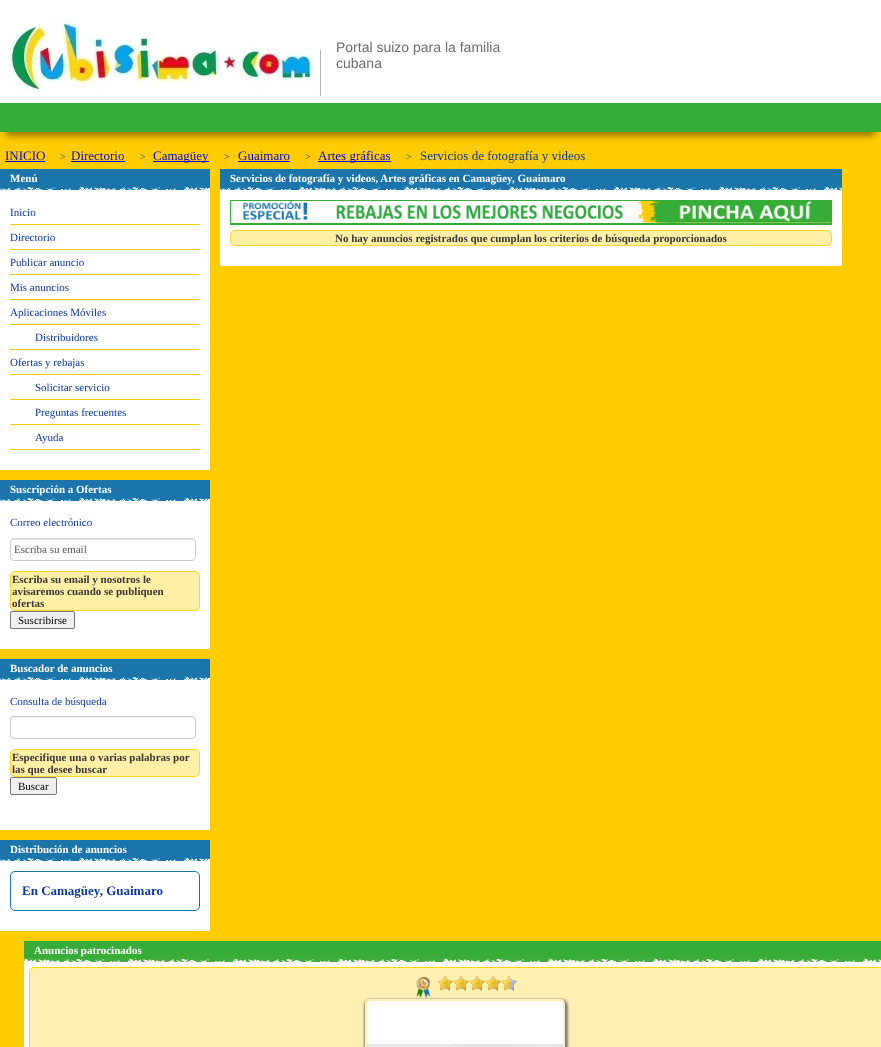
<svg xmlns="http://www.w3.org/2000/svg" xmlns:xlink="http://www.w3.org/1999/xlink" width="881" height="1047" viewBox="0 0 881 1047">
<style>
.cls-1{font:14px Liberation Sans;fill:#6d6d6d}
.cls-2{font:13px Liberation Serif;fill:#0000ee}
.cls-3{font:10px Liberation Serif;fill:#0b38a0}
.cls-4{font:13px Liberation Serif;fill:#0b38a0}
.cls-5{font:bold 11px Liberation Serif;fill:#ffffff}
.cls-6{font:11px Liberation Serif;fill:#0b38a0}
.cls-7{font:11px Liberation Serif;fill:#555555}
.cls-8{font:bold 11px Liberation Serif;fill:#363636}
.cls-9{font:11px Liberation Serif;fill:#000000}
.cls-10{font:bold 13px Liberation Serif;fill:#0b38a0}
</style>
<defs>
<clipPath id="clip1"><path d="M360 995H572V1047H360ZM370 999H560C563 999 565 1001 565 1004V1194C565 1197 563 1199 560 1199H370C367 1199 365 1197 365 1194V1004C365 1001 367 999 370 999Z" clip-rule="evenodd"/></clipPath>
</defs>
<rect width="100%" height="100%" fill="#ffcc00"/>
<rect fill="#ffffff" x="0" y="0" width="881" height="103"/>
<image xlink:href="image0.png" x="9" y="19" width="312" height="77"/>
<rect fill="#000000" fill-opacity="0.4" filter="blur(3px)" x="6" y="119" width="869" height="17"/>
<rect fill="#37ac37" x="0" y="103" width="881" height="29"/>
<rect fill="#0000ee" x="5" y="161" width="40" height="1"/>
<rect fill="#0000ee" x="71" y="161" width="54" height="1"/>
<rect fill="#0000ee" x="153" y="161" width="56" height="1"/>
<rect fill="#0000ee" x="238" y="161" width="52" height="1"/>
<rect fill="#0000ee" x="318" y="161" width="73" height="1"/>
<rect fill="#ffffff" x="0" y="187" width="210" height="744"/>
<rect fill="#1b75ab" x="0" y="169" width="210" height="17"/>
<image xlink:href="image1.png" x="0" y="186" width="210" height="4"/>
<rect fill="#ffcc00" x="10" y="224" width="190" height="1"/>
<rect fill="#ffcc00" x="10" y="249" width="190" height="1"/>
<rect fill="#ffcc00" x="10" y="274" width="190" height="1"/>
<rect fill="#ffcc00" x="10" y="299" width="190" height="1"/>
<rect fill="#ffcc00" x="10" y="324" width="190" height="1"/>
<rect fill="#ffcc00" x="10" y="349" width="190" height="1"/>
<rect fill="#ffcc00" x="10" y="374" width="190" height="1"/>
<rect fill="#ffcc00" x="10" y="399" width="190" height="1"/>
<rect fill="#ffcc00" x="10" y="424" width="190" height="1"/>
<rect fill="#ffcc00" x="10" y="449" width="190" height="1"/>
<rect fill="#ffcc00" x="0" y="470" width="210" height="10"/>
<rect fill="#1b75ab" x="0" y="480" width="210" height="17"/>
<image xlink:href="image1.png" x="0" y="497" width="210" height="4"/>
<path fill="#ececec" d="M14 540H193L194 541L195 543C195 541 194 539 192 539H13C11 540 11 541 11 543C11 541 12 540 14 540Z"/>
<rect fill="none" stroke="#cccccc" x="10.5" y="538.5" width="185" height="22" rx="3.5"/>
<image xlink:href="image2.png" x="10" y="572" width="190" height="39"/>
<rect fill="none" stroke="#fed22f" x="10.5" y="571.5" width="189" height="39" rx="4.5"/>
<rect fill="#efefef" stroke="#767676" x="10.5" y="611.5" width="64" height="17" rx="1.5"/>
<rect fill="#ffcc00" x="0" y="649" width="210" height="10"/>
<rect fill="#1b75ab" x="0" y="659" width="210" height="17"/>
<image xlink:href="image1.png" x="0" y="676" width="210" height="4"/>
<path fill="#ececec" d="M14 718H193L194 719L195 721C195 719 194 717 192 717H13C11 718 11 719 11 721C11 719 12 718 14 718Z"/>
<rect fill="none" stroke="#cccccc" x="10.5" y="716.5" width="185" height="22" rx="3.5"/>
<image xlink:href="image3.png" x="10" y="750" width="190" height="27"/>
<rect fill="none" stroke="#fed22f" x="10.5" y="749.5" width="189" height="27" rx="4.5"/>
<rect fill="#efefef" stroke="#767676" x="10.5" y="777.5" width="46" height="17" rx="1.5"/>
<rect fill="#ffcc00" x="0" y="830" width="210" height="10"/>
<rect fill="#1b75ab" x="0" y="840" width="210" height="17"/>
<image xlink:href="image1.png" x="0" y="857" width="210" height="4"/>
<rect fill="none" stroke="#1b75ab" x="10.5" y="871.5" width="189" height="39" rx="4.5"/>
<rect fill="#ffffff" x="220" y="187" width="622" height="79"/>
<rect fill="#1b75ab" x="220" y="169" width="622" height="17"/>
<image xlink:href="image4.png" x="220" y="186" width="622" height="4"/>
<rect fill="#37ac37" x="230" y="200" width="602" height="25"/>
<image xlink:href="image5.png" x="231" y="201" width="600" height="22"/>
<image xlink:href="image6.png" x="230" y="231" width="602" height="15"/>
<rect fill="none" stroke="#fed22f" x="230.5" y="230.5" width="601" height="15" rx="4.5"/>
<rect fill="#ffffff" x="24" y="959" width="857" height="88"/>
<rect fill="#37ac37" x="24" y="941" width="857" height="17"/>
<image xlink:href="image7.png" x="24" y="958" width="857" height="4"/>
<rect fill="#ffefb2" stroke="#ffd700" x="29.5" y="967.5" width="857" height="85" rx="4.5"/>
<image xlink:href="image8.png" x="416" y="977" width="15" height="22"/>
<image xlink:href="image9.png" x="437" y="975" width="8" height="16"/>
<image xlink:href="image10.png" x="445" y="975" width="8" height="16"/>
<image xlink:href="image9.png" x="453" y="975" width="8" height="16"/>
<image xlink:href="image10.png" x="461" y="975" width="8" height="16"/>
<image xlink:href="image9.png" x="469" y="975" width="8" height="16"/>
<image xlink:href="image10.png" x="477" y="975" width="8" height="16"/>
<image xlink:href="image9.png" x="485" y="975" width="8" height="16"/>
<image xlink:href="image10.png" x="493" y="975" width="8" height="16"/>
<image xlink:href="image9.png" x="501" y="975" width="8" height="16"/>
<image xlink:href="image11.png" x="509" y="976" width="8" height="15"/>
<g clip-path="url(#clip1)">
<rect fill="#808080" filter="blur(1px)" x="364" y="999" width="204" height="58" rx="7"/>
</g>
<image xlink:href="image12.png" x="367" y="1001" width="196" height="46"/>
<text class="cls-1"><tspan x="336" y="52">Portal suizo para la familia</tspan><tspan x="336" y="68">cubana</tspan></text>
<text class="cls-2" x="5" y="160">INICIO</text>
<text class="cls-3" x="60" y="160">&gt;</text>
<text class="cls-2" x="71" y="160">Directorio</text>
<text class="cls-3" x="140" y="160">&gt;</text>
<text class="cls-2" x="153" y="160">Camagüey</text>
<text class="cls-3" x="224" y="160">&gt;</text>
<text class="cls-2" x="238" y="160">Guaimaro</text>
<text class="cls-3" x="305" y="160">&gt;</text>
<text class="cls-2" x="318" y="160">Artes gráficas</text>
<text class="cls-3" x="406" y="160">&gt;</text>
<text class="cls-4" x="420" y="160">Servicios de fotografía y videos</text>
<text class="cls-5" x="10" y="182">Menú</text>
<text class="cls-6" x="10" y="216">Inicio</text>
<text class="cls-6" x="10" y="241">Directorio</text>
<text class="cls-6" x="10" y="266">Publicar anuncio</text>
<text class="cls-6" x="10" y="291">Mis anuncios</text>
<text class="cls-6" x="10" y="316">Aplicaciones Móviles</text>
<text class="cls-6" x="35" y="341">Distribuidores</text>
<text class="cls-6" x="10" y="366">Ofertas y rebajas</text>
<text class="cls-6" x="35" y="391">Solicitar servicio</text>
<text class="cls-6" x="35" y="416">Preguntas frecuentes</text>
<text class="cls-6" x="35" y="441">Ayuda</text>
<text class="cls-5" x="10" y="493">Suscripción a Ofertas</text>
<text class="cls-6" x="10" y="526">Correo electrónico</text>
<text class="cls-7" x="14" y="553">Escriba su email</text>
<text class="cls-8"><tspan x="12" y="583">Escriba su email y nosotros le</tspan><tspan x="12" y="595">avisaremos cuando se publiquen</tspan><tspan x="12" y="607">ofertas</tspan></text>
<text class="cls-9" x="18" y="624">Suscribirse</text>
<text class="cls-5" x="10" y="672">Buscador de anuncios</text>
<text class="cls-6" x="10" y="705">Consulta de búsqueda</text>
<text class="cls-8"><tspan x="12" y="761">Especifique una o varias palabras por</tspan><tspan x="12" y="773">las que desee buscar</tspan></text>
<text class="cls-9" x="18" y="790">Buscar</text>
<text class="cls-5" x="10" y="853">Distribución de anuncios</text>
<text class="cls-10" x="22" y="895">En Camagüey, Guaimaro</text>
<text class="cls-5" x="230" y="182">Servicios de fotografía y videos, Artes gráficas en Camagüey, Guaimaro</text>
<text class="cls-8" x="335" y="242">No hay anuncios registrados que cumplan los criterios de búsqueda proporcionados</text>
<text class="cls-5" x="34" y="954">Anuncios patrocinados</text>
</svg>
